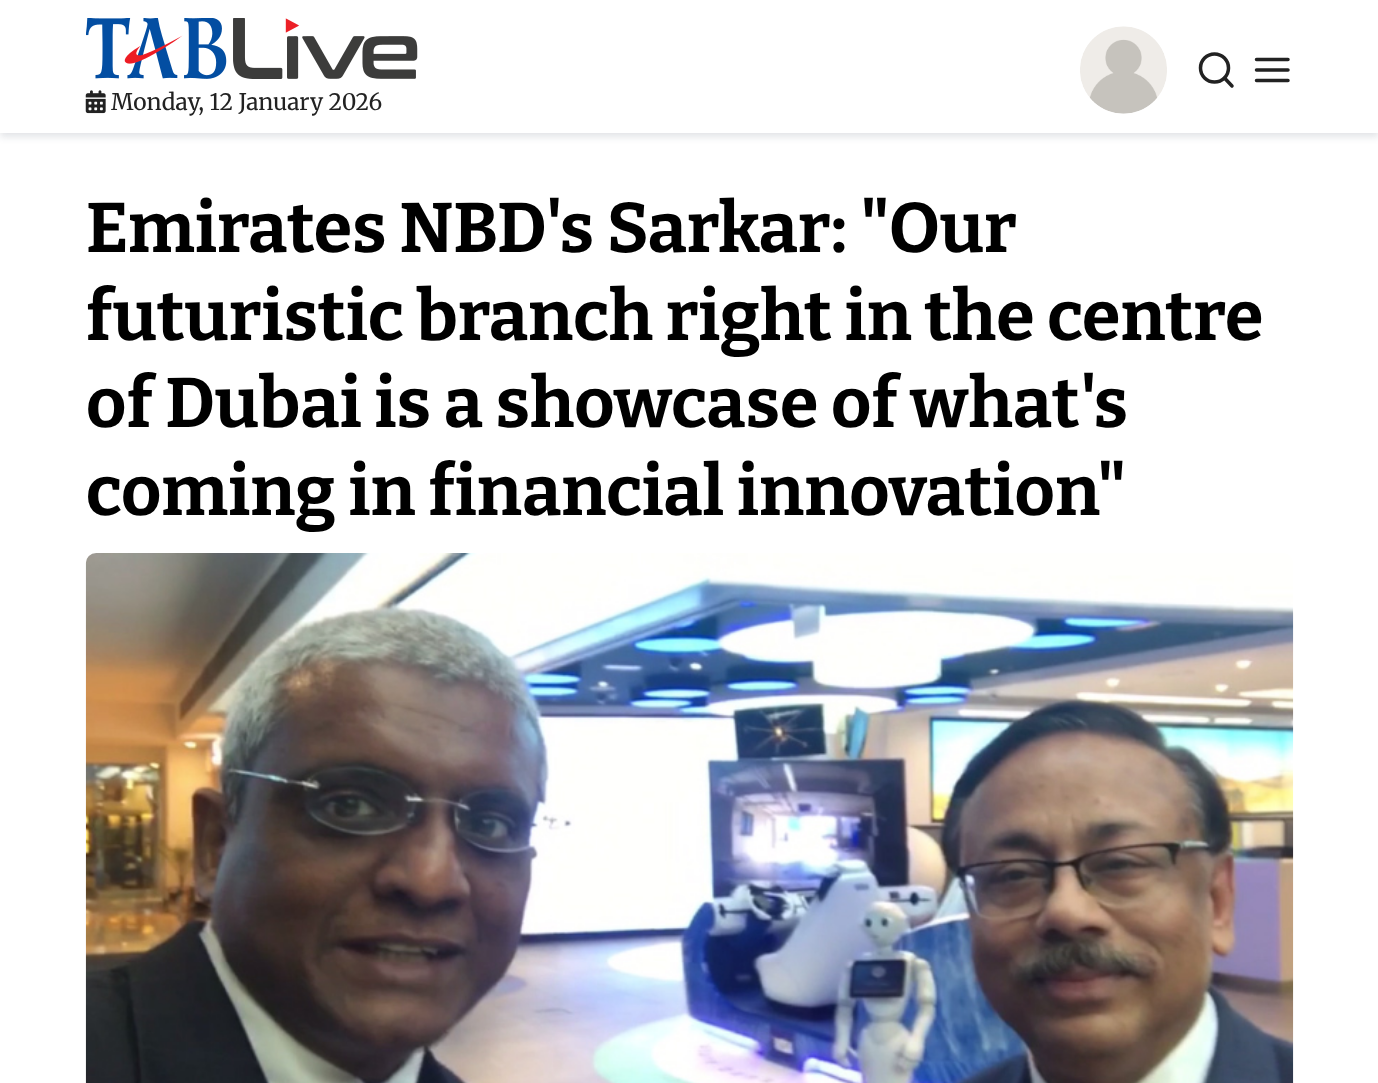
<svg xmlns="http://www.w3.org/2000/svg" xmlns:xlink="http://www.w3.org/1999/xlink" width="1378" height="1083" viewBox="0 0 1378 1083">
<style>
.cls-1{font:22.75px Merriweather;fill:#222222}
.cls-2{font:bold 70px Bitter;fill:#000000}
</style>
<rect width="100%" height="100%" fill="#ffffff"/>
<rect fill="#0f223a" fill-opacity="0.12" filter="blur(3.5px)" x="0" y="4" width="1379" height="133"/>
<rect fill="#ffffff" x="0" y="0" width="1378" height="133"/>
<image xlink:href="image0.png" x="86" y="18" width="332" height="61"/>
<image xlink:href="image1.png" x="85" y="90" width="21" height="24"/>
<image xlink:href="image2.png" x="1080" y="26" width="87" height="88"/>
<circle fill="none" stroke="#222222" stroke-width="3.5" cx="1214.5" cy="68" r="14"/>
<path fill="none" stroke="#222222" stroke-width="3.5" stroke-linecap="round" stroke-linejoin="round" d="M1232 86L1224.5 78"/>
<path fill="none" stroke="#222222" stroke-width="3.5" stroke-linecap="round" stroke-linejoin="round" d="M1256.5 70H1288M1256.5 59.5H1288M1256.5 80.5H1288"/>
<image xlink:href="image3.png" x="85" y="553" width="1209" height="530"/>
<text class="cls-1" x="111" y="110">Monday, 12 January 2026</text>
<text class="cls-2"><tspan x="86" y="252">Emirates NBD's Sarkar: "Our</tspan><tspan x="86" y="340">futuristic branch right in the centre</tspan><tspan x="86" y="427">of Dubai is a showcase of what's</tspan><tspan x="86" y="515">coming in financial innovation"</tspan></text>
</svg>
